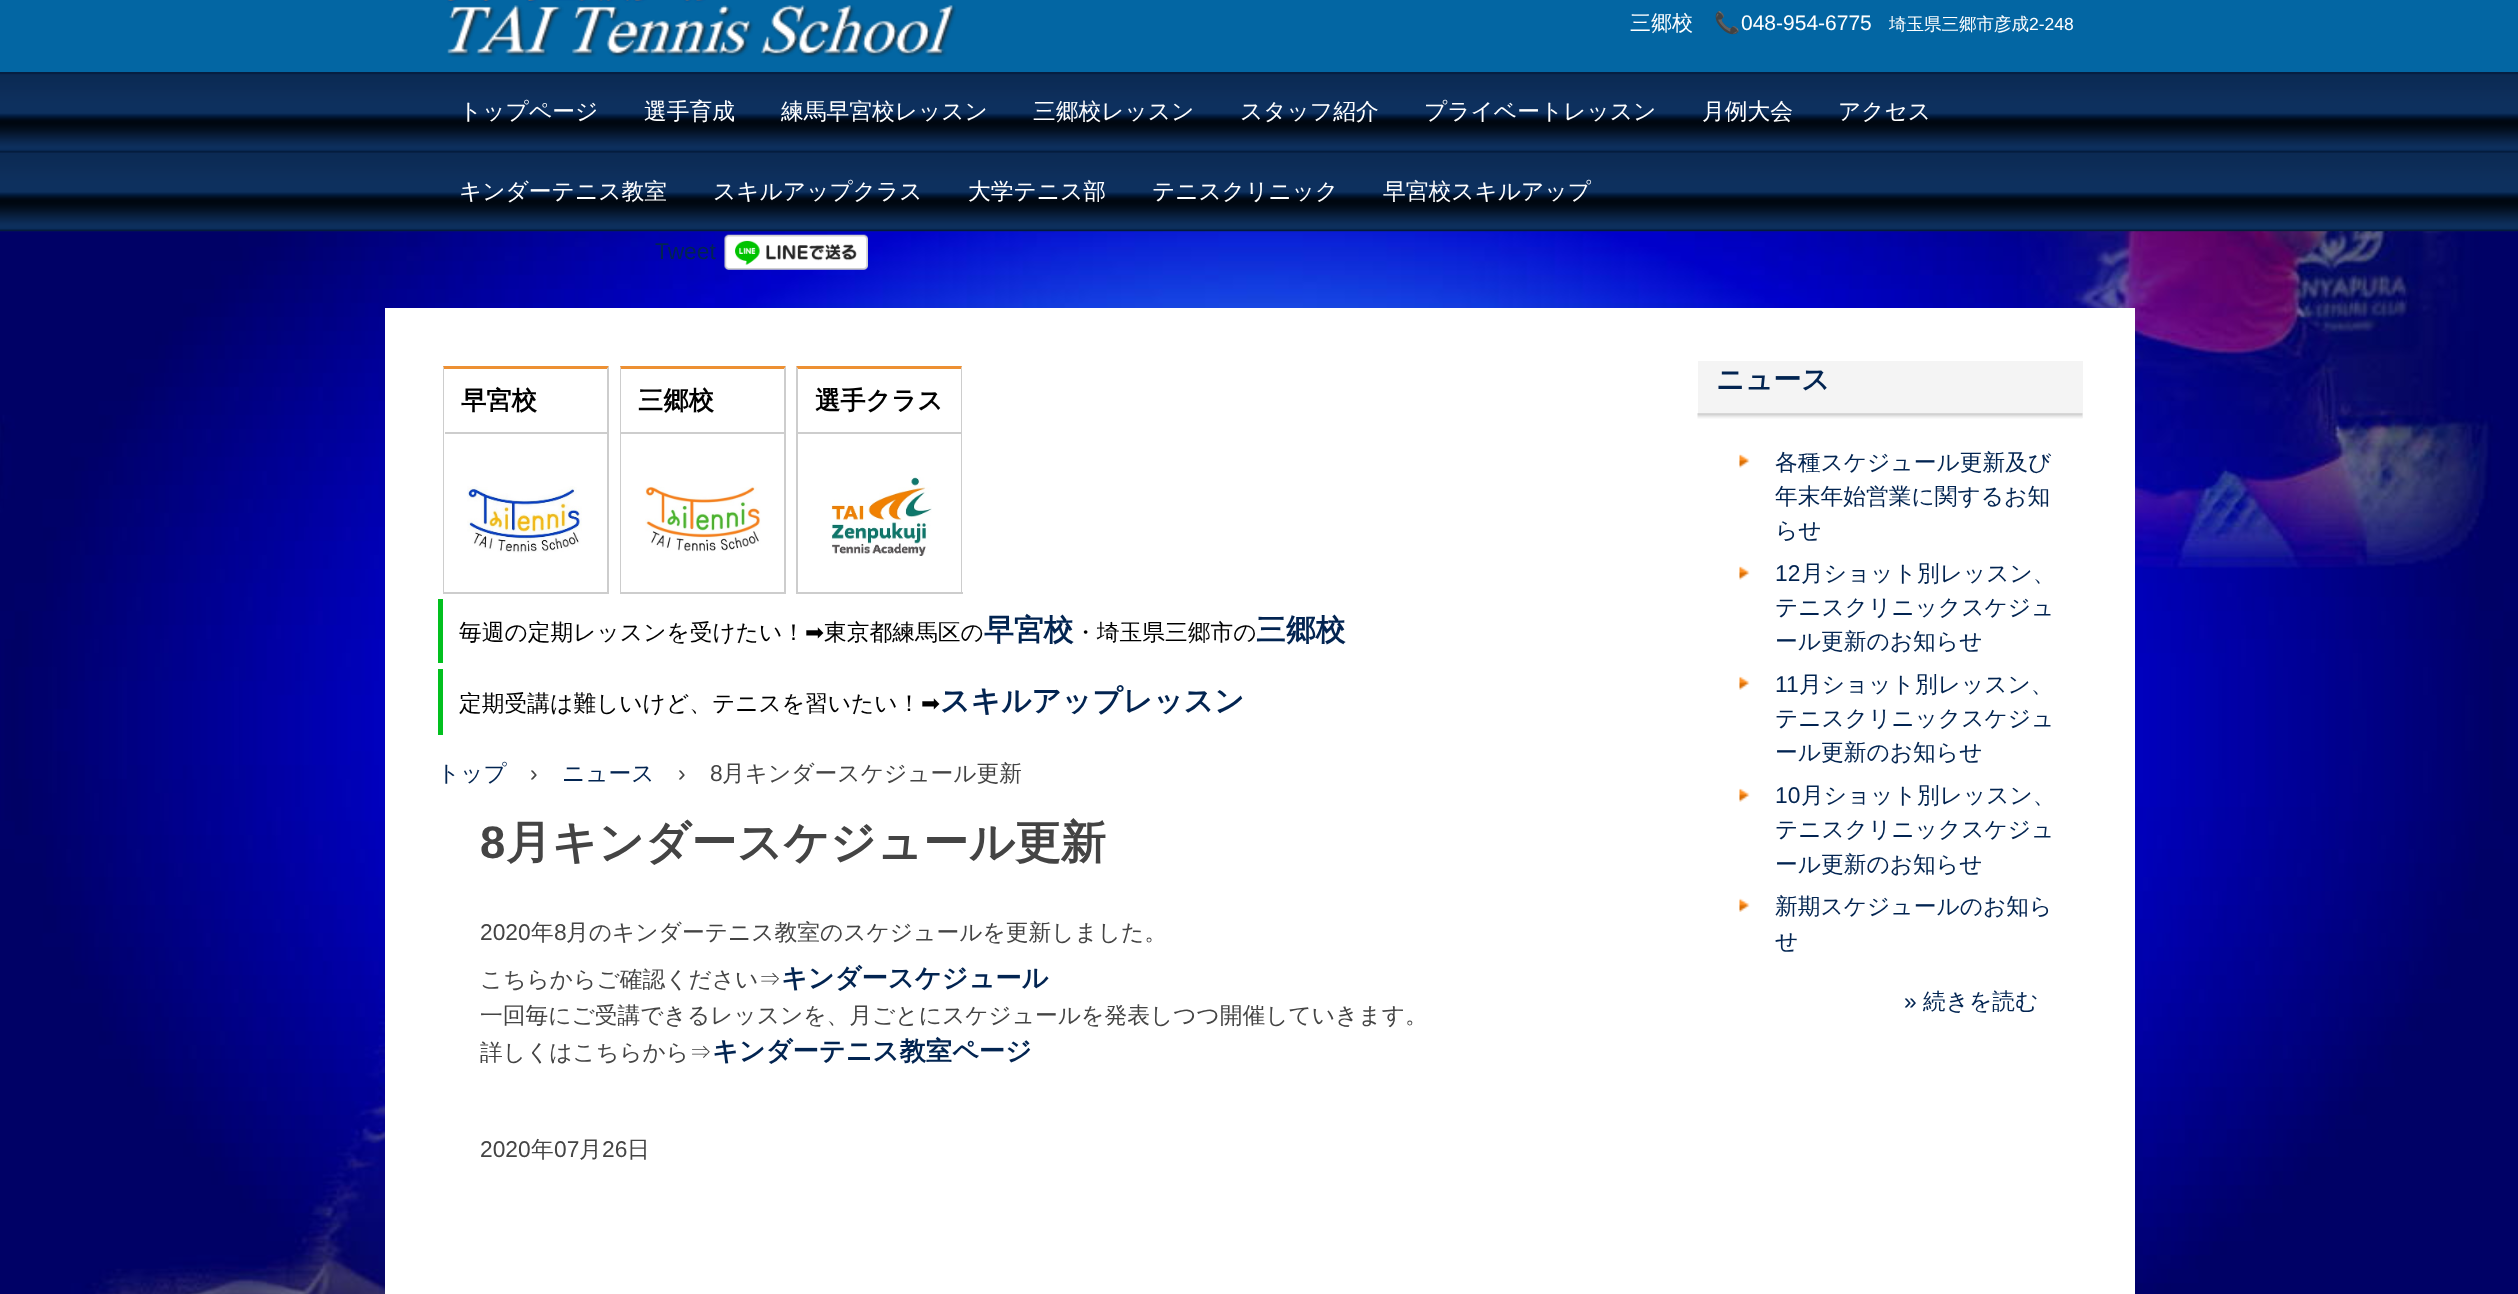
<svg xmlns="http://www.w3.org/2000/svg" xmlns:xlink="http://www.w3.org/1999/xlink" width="2518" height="1294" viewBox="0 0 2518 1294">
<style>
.cls-1{font:500 21px WenQuanYi Zen Hei;fill:#ffffff}
.cls-2{font:21px Noto Color Emoji;fill:#ffffff}
.cls-3{font:21px Liberation Sans;fill:#ffffff}
.cls-4{font:500 17.5px WenQuanYi Zen Hei;fill:#ffffff}
.cls-5{font:17.5px Liberation Sans;fill:#ffffff}
.cls-6{font:500 22.75px WenQuanYi Zen Hei;fill:#ffffff}
.cls-7{font:22.75px Liberation Sans;fill:#022451}
.cls-8{font:bold 25.25px WenQuanYi Zen Hei;fill:#000000}
.cls-9{font:500 22.75px WenQuanYi Zen Hei;fill:#000000}
.cls-10{font:22.75px DejaVu Sans;fill:#000000}
.cls-11{font:bold 29.75px WenQuanYi Zen Hei;fill:#022451}
.cls-12{font:500 22.75px WenQuanYi Zen Hei;fill:#022451}
.cls-13{font:22.75px Liberation Sans;fill:#444444}
.cls-14{font:500 22.75px WenQuanYi Zen Hei;fill:#444444}
.cls-15{font:bold 45.5px Liberation Sans;fill:#444444}
.cls-16{font:bold 45.5px WenQuanYi Zen Hei;fill:#444444}
.cls-17{font:bold 26.25px WenQuanYi Zen Hei;fill:#022451}
.cls-18{font:bold 28px WenQuanYi Zen Hei;fill:#022451}
</style>
<rect width="100%" height="100%" fill="#ffffff"/>
<image xlink:href="image0.png" x="0" y="231" width="2518" height="1063"/>
<rect fill="#0366a3" x="0" y="0" width="2518" height="72"/>
<image xlink:href="image1.png" x="447" y="0" width="509" height="57"/>
<image xlink:href="image2.png" x="0" y="72" width="2518" height="160"/>
<image xlink:href="image3.png" x="724" y="234" width="144" height="36"/>
<rect fill="#ffffff" x="385" y="308" width="1750" height="986"/>
<path fill="#ed9033" d="M443 366H609L607 369H444Z"/>
<path fill="#cdcdcd" d="M609 366V593L607 592V369Z"/>
<rect fill="#cdcdcd" x="443" y="592" width="166" height="2"/>
<path fill="#cdcdcd" d="M443 593V366L444 369V592Z"/>
<rect fill="#cdcdcd" x="445" y="432" width="162" height="2"/>
<image xlink:href="image4.png" x="467" y="486" width="115" height="67"/>
<path fill="#ed9033" d="M620 366H786L784 369H621Z"/>
<path fill="#cdcdcd" d="M786 366V593L784 592V369Z"/>
<rect fill="#cdcdcd" x="620" y="592" width="166" height="2"/>
<path fill="#cdcdcd" d="M620 593V366L621 369V592Z"/>
<rect fill="#cdcdcd" x="621" y="432" width="163" height="2"/>
<image xlink:href="image5.png" x="645" y="486" width="116" height="66"/>
<path fill="#ed9033" d="M796 366H962L961 369H798Z"/>
<path fill="#cdcdcd" d="M962 366V593L961 592V369Z"/>
<rect fill="#cdcdcd" x="796" y="592" width="167" height="2"/>
<path fill="#cdcdcd" d="M796 593V366L798 369V592Z"/>
<rect fill="#cdcdcd" x="798" y="432" width="163" height="2"/>
<image xlink:href="image6.png" x="831" y="477" width="101" height="79"/>
<rect fill="#02c01f" x="438" y="599" width="5" height="64"/>
<rect fill="#02c01f" x="438" y="669" width="5" height="66"/>
<rect fill="#f4f4f4" x="1698" y="361" width="385" height="57"/>
<image xlink:href="image7.png" x="1697" y="413" width="386" height="6"/>
<image xlink:href="image8.png" x="1739" y="454" width="11" height="14"/>
<image xlink:href="image8.png" x="1739" y="566" width="11" height="14"/>
<image xlink:href="image9.png" x="1739" y="676" width="11" height="14"/>
<image xlink:href="image9.png" x="1739" y="788" width="11" height="14"/>
<image xlink:href="image10.png" x="1739" y="898" width="11" height="14"/>
<text class="cls-1" x="1630" y="30">三郷校</text>
<text class="cls-2" x="1714" y="30">📞</text>
<text class="cls-3" x="1741" y="30">048-954-6775</text>
<text class="cls-4" x="1889" y="30">埼玉県三郷市彦成</text>
<text class="cls-5" x="2029" y="30">2-248</text>
<text class="cls-6" x="459" y="119">トップページ</text>
<text class="cls-6" x="644" y="119">選手育成</text>
<text class="cls-6" x="781" y="119">練馬早宮校レッスン</text>
<text class="cls-6" x="1033" y="119">三郷校レッスン</text>
<text class="cls-6" x="1240" y="119">スタッフ紹介</text>
<text class="cls-6" x="1424" y="119">プライベートレッスン</text>
<text class="cls-6" x="1702" y="119">月例大会</text>
<text class="cls-6" x="1838" y="119">アクセス</text>
<text class="cls-6" x="459" y="199">キンダーテニス教室</text>
<text class="cls-6" x="713" y="199">スキルアップクラス</text>
<text class="cls-6" x="968" y="199">大学テニス部</text>
<text class="cls-6" x="1152" y="199">テニスクリニック</text>
<text class="cls-6" x="1383" y="199">早宮校スキルアップ</text>
<text class="cls-7" x="655" y="259">Tweet</text>
<text class="cls-8" x="461" y="409">早宮校</text>
<text class="cls-8" x="638" y="409">三郷校</text>
<text class="cls-8" x="815" y="409">選手クラス</text>
<text class="cls-9" x="459" y="640">毎週の定期レッスンを受けたい！</text>
<text class="cls-10" x="805" y="640">➡</text>
<text class="cls-9" x="824" y="640">東京都練馬区の</text>
<text class="cls-11" x="984" y="640">早宮校</text>
<text class="cls-9" x="1074" y="640">・埼玉県三郷市の</text>
<text class="cls-11" x="1256" y="640">三郷校</text>
<text class="cls-9" x="459" y="711">定期受講は難しいけど、テニスを習いたい！</text>
<text class="cls-10" x="921" y="711">➡</text>
<text class="cls-11" x="940" y="711">スキルアップレッスン</text>
<text class="cls-12" x="437" y="781">トップ</text>
<text class="cls-13" x="530" y="781">›</text>
<text class="cls-12" x="562" y="781">ニュース</text>
<text class="cls-13" x="678" y="781">›</text>
<text class="cls-13" x="710" y="781">8</text>
<text class="cls-14" x="722" y="781">月キンダースケジュール更新</text>
<text class="cls-15" x="480" y="858">8</text>
<text class="cls-16" x="506" y="858">月キンダースケジュール更新</text>
<text class="cls-13" x="480" y="940">2020</text>
<text class="cls-14" x="531" y="940">年</text>
<text class="cls-13" x="554" y="940">8</text>
<text class="cls-14" x="566" y="940">月のキンダーテニス教室のスケジュールを更新しました。</text>
<text class="cls-14" x="480" y="987">こちらからご確認ください⇒</text>
<text class="cls-17" x="781" y="987">キンダースケジュール</text>
<text class="cls-14"><tspan x="480" y="1023">一回毎にご受講できるレッスンを、月ごとにスケジュールを発表しつつ開催していきます。</tspan><tspan x="480" y="1060">詳しくはこちらから⇒</tspan></text>
<text class="cls-17" x="712" y="1060">キンダーテニス教室ページ</text>
<text class="cls-13" x="480" y="1157">2020</text>
<text class="cls-14" x="531" y="1157">年</text>
<text class="cls-13" x="554" y="1157">07</text>
<text class="cls-14" x="579" y="1157">月</text>
<text class="cls-13" x="602" y="1157">26</text>
<text class="cls-14" x="627" y="1157">日</text>
<text class="cls-18" x="1716" y="389">ニュース</text>
<text class="cls-12"><tspan x="1775" y="470">各種スケジュール更新及び</tspan><tspan x="1775" y="504">年末年始営業に関するお知</tspan><tspan x="1775" y="538">らせ</tspan></text>
<text class="cls-7" x="1775" y="581">12</text>
<text class="cls-12" x="1801" y="581">月ショット別レッスン、</text>
<text class="cls-12"><tspan x="1775" y="615">テニスクリニックスケジュ</tspan><tspan x="1775" y="649">ール更新のお知らせ</tspan></text>
<text class="cls-7" x="1775" y="692">11</text>
<text class="cls-12" x="1799" y="692">月ショット別レッスン、</text>
<text class="cls-12"><tspan x="1775" y="726">テニスクリニックスケジュ</tspan><tspan x="1775" y="760">ール更新のお知らせ</tspan></text>
<text class="cls-7" x="1775" y="803">10</text>
<text class="cls-12" x="1801" y="803">月ショット別レッスン、</text>
<text class="cls-12"><tspan x="1775" y="837">テニスクリニックスケジュ</tspan><tspan x="1775" y="872">ール更新のお知らせ</tspan><tspan x="1775" y="914">新期スケジュールのお知ら</tspan><tspan x="1775" y="949">せ</tspan></text>
<text class="cls-7" x="1904" y="1009">»</text>
<text class="cls-12" x="1923" y="1009">続きを読む</text>
</svg>
